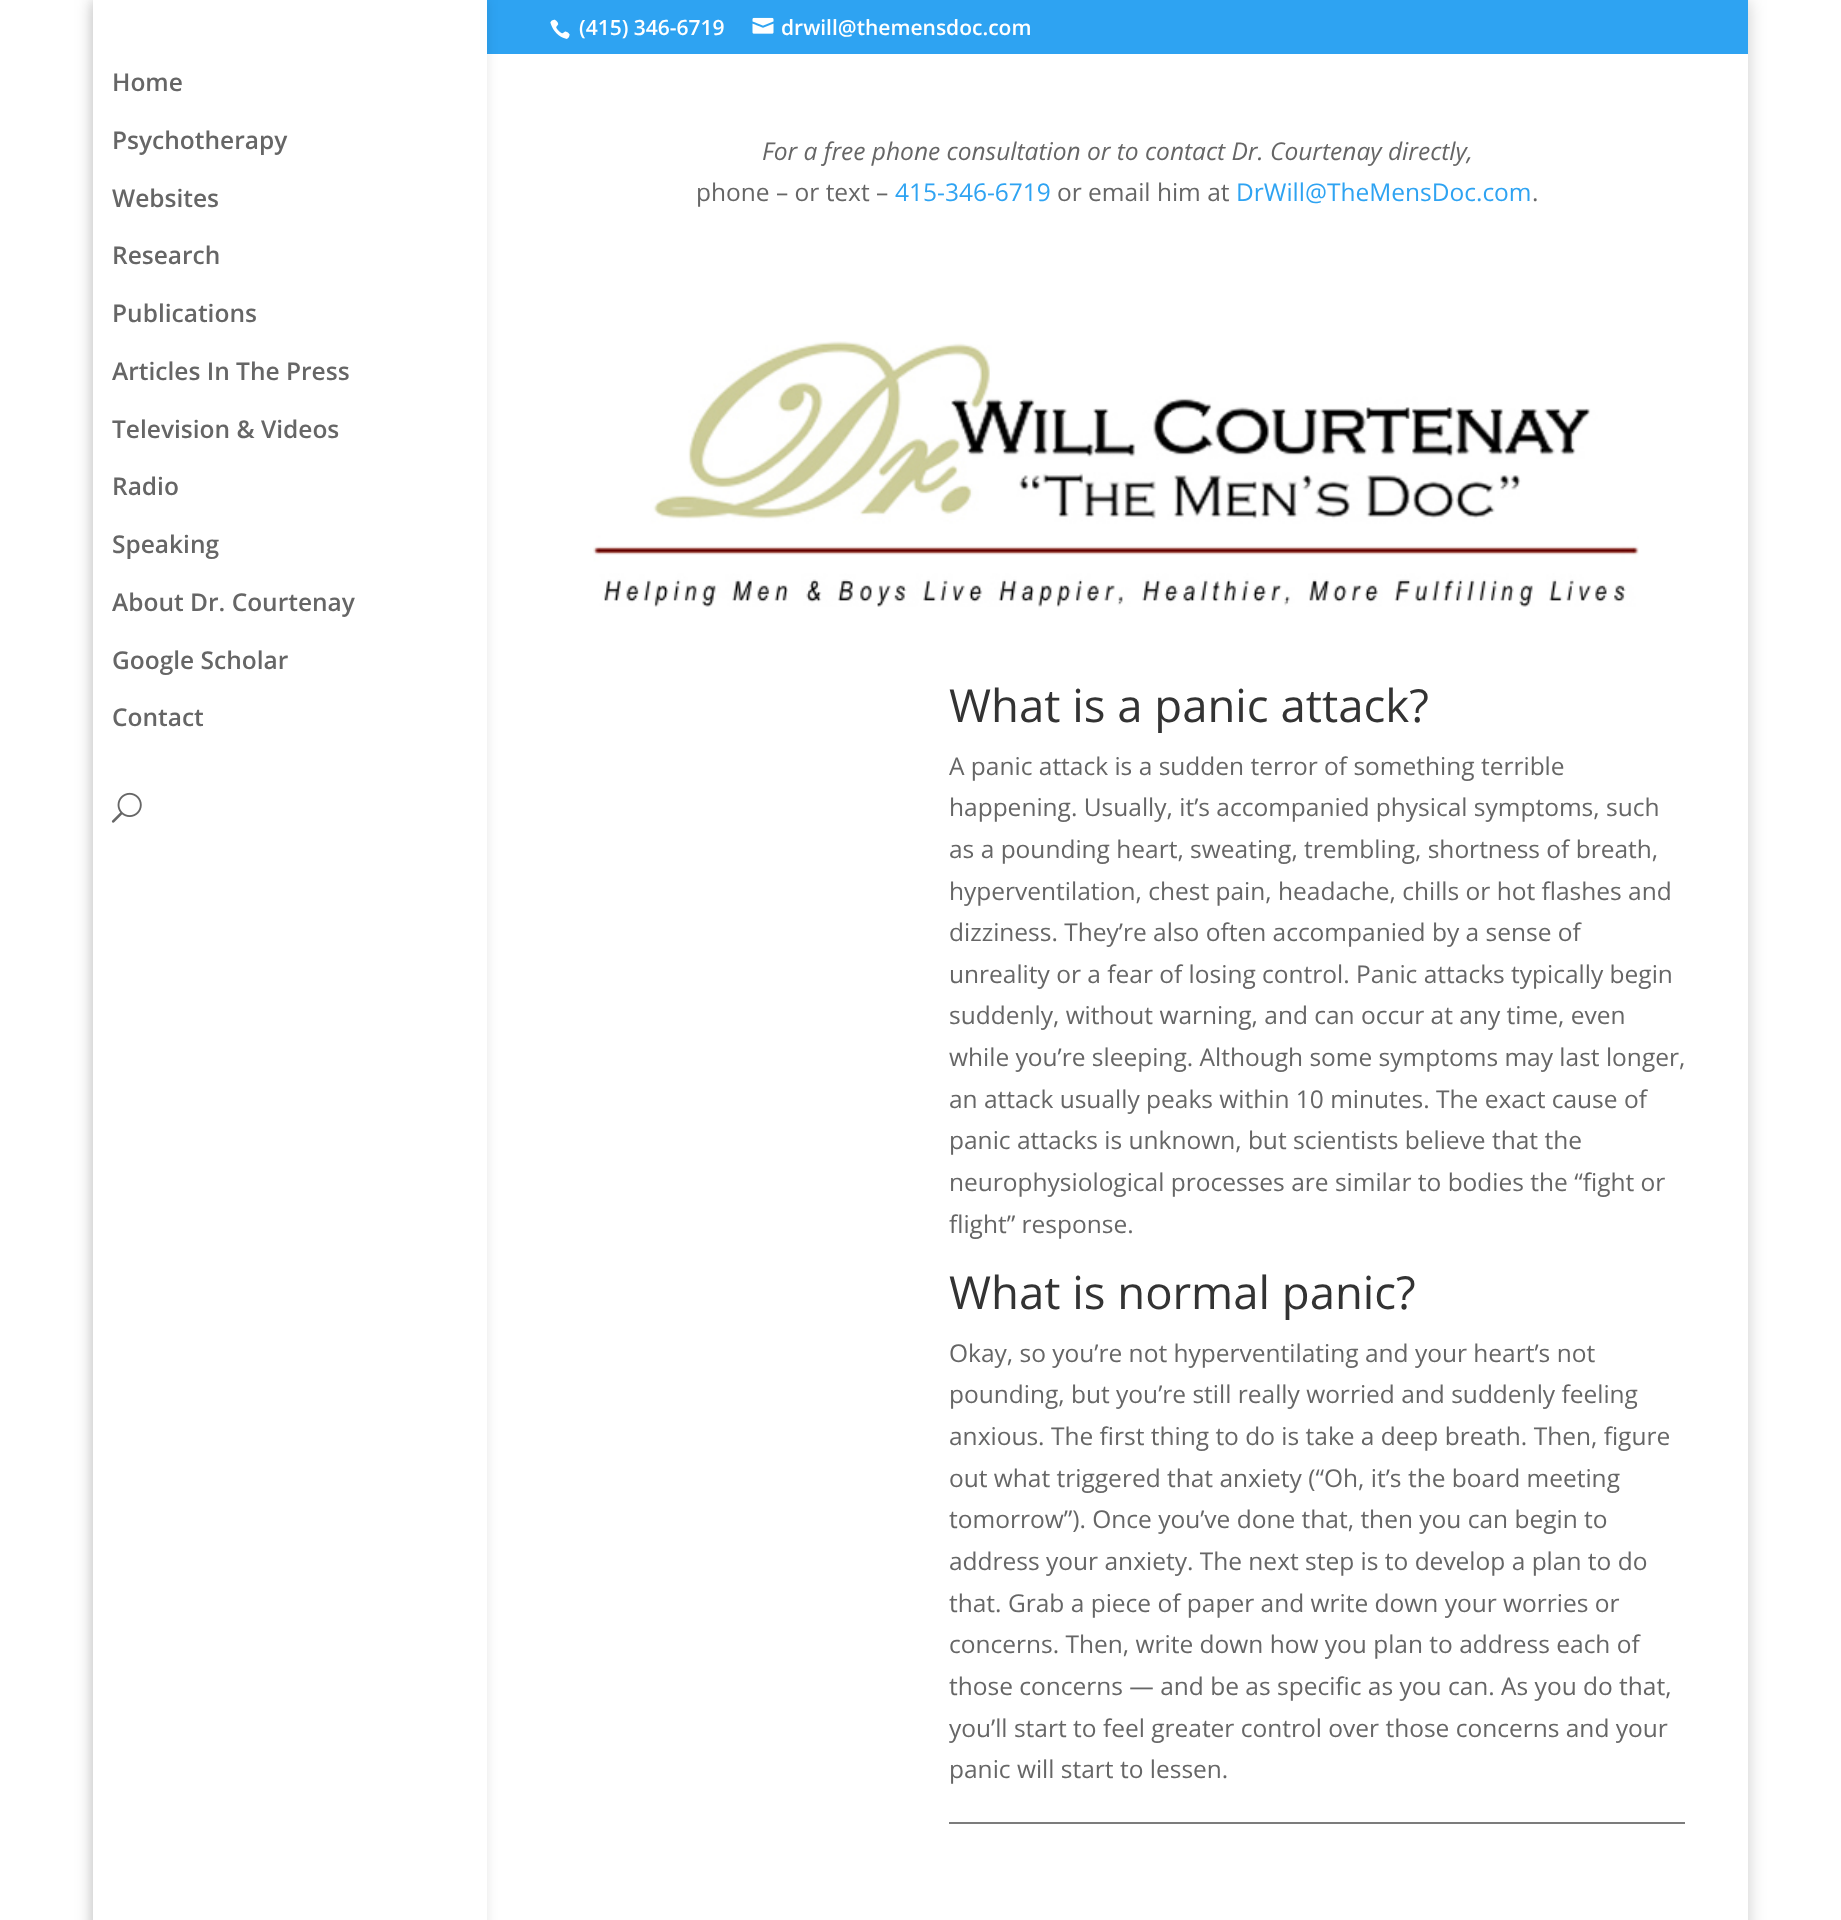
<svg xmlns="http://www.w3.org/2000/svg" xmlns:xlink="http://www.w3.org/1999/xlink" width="1841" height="1920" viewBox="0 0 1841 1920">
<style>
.cls-1{font:600 21px Open Sans;fill:#ffffff}
.cls-2{font:600 24.5px Open Sans;fill:#666666}
.cls-3{font:italic 24.5px Open Sans;fill:#666666}
.cls-4{font:24.5px Open Sans;fill:#666666}
.cls-5{font:24.5px Open Sans;fill:#2ea3f2}
.cls-6{font:45.5px Open Sans;fill:#333333}
</style>
<defs>
<clipPath id="clip1"><path d="M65 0H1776V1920H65ZM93 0H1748V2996H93Z" clip-rule="evenodd"/></clipPath>
</defs>
<rect width="100%" height="100%" fill="#ffffff"/>
<g clip-path="url(#clip1)">
<rect fill="#000000" fill-opacity="0.2" filter="blur(9px)" x="93" y="0" width="1655" height="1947"/>
</g>
<rect fill="#2ea3f2" x="487" y="0" width="1261" height="54"/>
<image xlink:href="image0.png" x="550" y="19" width="20" height="20"/>
<image xlink:href="image1.png" x="752" y="17" width="22" height="17"/>
<rect fill="#000000" fill-opacity="0.1" filter="blur(6px)" x="93" y="0" width="394" height="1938"/>
<rect fill="#ffffff" x="93" y="0" width="394" height="1920"/>
<image xlink:href="image2.png" x="111" y="792" width="31" height="31"/>
<image xlink:href="image3.png" x="590" y="341" width="1049" height="266"/>
<rect fill="#7c7c7c" x="949" y="1822" width="736" height="2"/>
<text class="cls-1" x="579" y="35">(415) 346-6719</text>
<text class="cls-1" x="781" y="35">drwill@themensdoc.com</text>
<text class="cls-2" x="112" y="91">Home</text>
<text class="cls-2" x="112" y="149">Psychotherapy</text>
<text class="cls-2" x="112" y="207">Websites</text>
<text class="cls-2" x="112" y="264">Research</text>
<text class="cls-2" x="112" y="322">Publications</text>
<text class="cls-2" x="112" y="380">Articles In The Press</text>
<text class="cls-2" x="112" y="438">Television &amp; Videos</text>
<text class="cls-2" x="112" y="495">Radio</text>
<text class="cls-2" x="112" y="553">Speaking</text>
<text class="cls-2" x="112" y="611">About Dr. Courtenay</text>
<text class="cls-2" x="112" y="669">Google Scholar</text>
<text class="cls-2" x="112" y="726">Contact</text>
<text class="cls-3" x="762" y="160">For a free phone consultation or to contact Dr. Courtenay directly,</text>
<text class="cls-4" x="696" y="201">phone – or text –</text>
<text class="cls-5" x="895" y="201">415-346-6719</text>
<text class="cls-4" x="1057" y="201">or email him at</text>
<text class="cls-5" x="1236" y="201">DrWill@TheMensDoc.com</text>
<text class="cls-4" x="1532" y="201">.</text>
<text class="cls-6" x="949" y="722">What is a panic attack?</text>
<text class="cls-4"><tspan x="949" y="775">A panic attack is a sudden terror of something terrible</tspan><tspan x="949" y="816">happening. Usually, it’s accompanied physical symptoms, such</tspan><tspan x="949" y="858">as a pounding heart, sweating, trembling, shortness of breath,</tspan><tspan x="949" y="900">hyperventilation, chest pain, headache, chills or hot flashes and</tspan><tspan x="949" y="941">dizziness. They’re also often accompanied by a sense of</tspan><tspan x="949" y="983">unreality or a fear of losing control. Panic attacks typically begin</tspan><tspan x="949" y="1024">suddenly, without warning, and can occur at any time, even</tspan><tspan x="949" y="1066">while you’re sleeping. Although some symptoms may last longer,</tspan><tspan x="949" y="1108">an attack usually peaks within 10 minutes. The exact cause of</tspan><tspan x="949" y="1149">panic attacks is unknown, but scientists believe that the</tspan><tspan x="949" y="1191">neurophysiological processes are similar to bodies the “fight or</tspan><tspan x="949" y="1233">flight” response.</tspan></text>
<text class="cls-6" x="949" y="1309">What is normal panic?</text>
<text class="cls-4"><tspan x="949" y="1362">Okay, so you’re not hyperventilating and your heart’s not</tspan><tspan x="949" y="1403">pounding, but you’re still really worried and suddenly feeling</tspan><tspan x="949" y="1445">anxious. The first thing to do is take a deep breath. Then, figure</tspan><tspan x="949" y="1487">out what triggered that anxiety (“Oh, it’s the board meeting</tspan><tspan x="949" y="1528">tomorrow”). Once you’ve done that, then you can begin to</tspan><tspan x="949" y="1570">address your anxiety. The next step is to develop a plan to do</tspan><tspan x="949" y="1612">that. Grab a piece of paper and write down your worries or</tspan><tspan x="949" y="1653">concerns. Then, write down how you plan to address each of</tspan><tspan x="949" y="1695">those concerns — and be as specific as you can. As you do that,</tspan><tspan x="949" y="1737">you’ll start to feel greater control over those concerns and your</tspan><tspan x="949" y="1778">panic will start to lessen.</tspan></text>
</svg>
